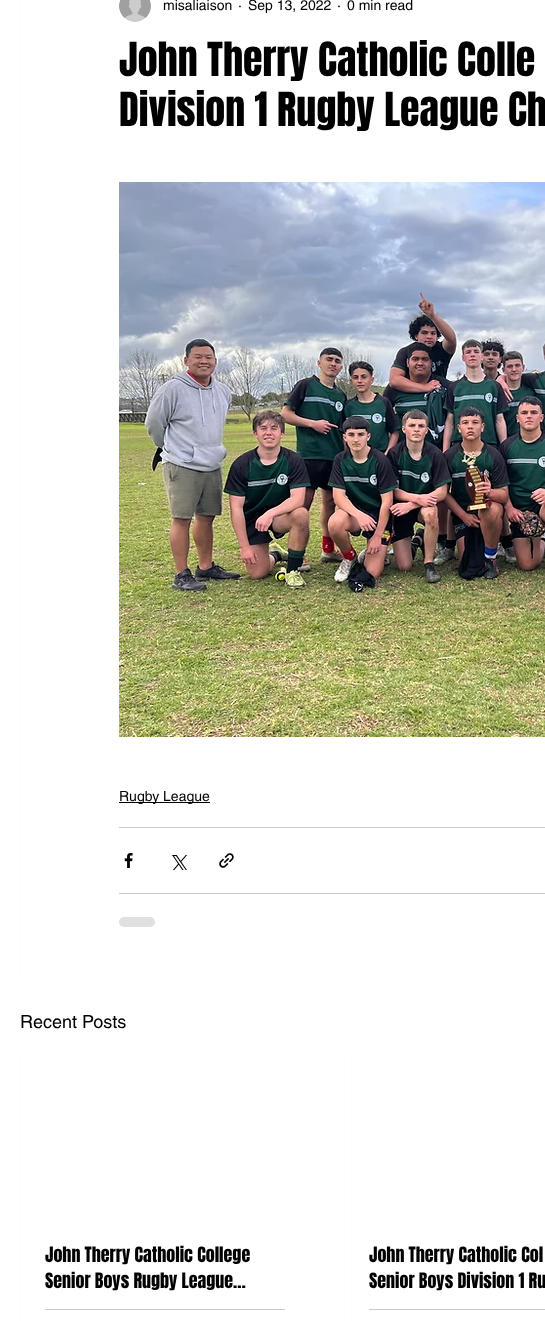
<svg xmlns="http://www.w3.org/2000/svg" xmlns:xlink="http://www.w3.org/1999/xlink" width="545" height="1321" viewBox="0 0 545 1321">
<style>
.cls-1{font:14px helvetica;fill:#000000}
.cls-2{font:40px Anton;fill:#000000}
.cls-3{font:18px helvetica;fill:#000000}
.cls-4{font:18px Anton;fill:#000000}
</style>
<rect width="100%" height="100%" fill="#ffffff"/>
<rect fill="none" stroke="#fefdfc" x="20.5" y="-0.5" width="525" height="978"/>
<image xlink:href="image0.png" x="119" y="0" width="32" height="22"/>
<image xlink:href="image1.png" x="119" y="182" width="426" height="555"/>
<rect fill="#000000" x="119" y="802" width="91" height="1"/>
<rect fill="#cccccc" x="119" y="827" width="426" height="1"/>
<image xlink:href="image2.png" x="124" y="853" width="9" height="15"/>
<image xlink:href="image3.png" x="172" y="855" width="15" height="15"/>
<image xlink:href="image4.png" x="219" y="853" width="15" height="15"/>
<rect fill="#cccccc" x="119" y="893" width="426" height="1"/>
<rect fill="#e0e0e0" x="119" y="917" width="36" height="10" rx="5"/>
<rect fill="none" stroke="#fefdfc" x="20.5" y="1055.5" width="289" height="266"/>
<rect fill="#cccccc" x="45" y="1309" width="240" height="1"/>
<rect fill="none" stroke="#fefdfc" x="344.5" y="1055.5" width="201" height="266"/>
<rect fill="#cccccc" x="369" y="1309" width="176" height="1"/>
<text class="cls-1" x="163" y="10">misaliaison</text>
<text class="cls-1" x="238" y="10">·</text>
<text class="cls-1" x="248" y="10">Sep 13, 2022</text>
<text class="cls-1" x="337" y="10">·</text>
<text class="cls-1" x="347" y="10">0 min read</text>
<text class="cls-2"><tspan x="119" y="76">John Therry Catholic Colle</tspan><tspan x="119" y="126">Division 1 Rugby League Ch</tspan></text>
<text class="cls-1" x="119" y="801">Rugby League</text>
<text class="cls-3" x="20" y="1028">Recent Posts</text>
<text class="cls-4"><tspan x="45" y="1262">John Therry Catholic College</tspan><tspan x="45" y="1288">Senior Boys Rugby League…</tspan></text>
<text class="cls-4"><tspan x="369" y="1262">John Therry Catholic Col</tspan><tspan x="369" y="1288">Senior Boys Division 1 Ru</tspan></text>
</svg>
